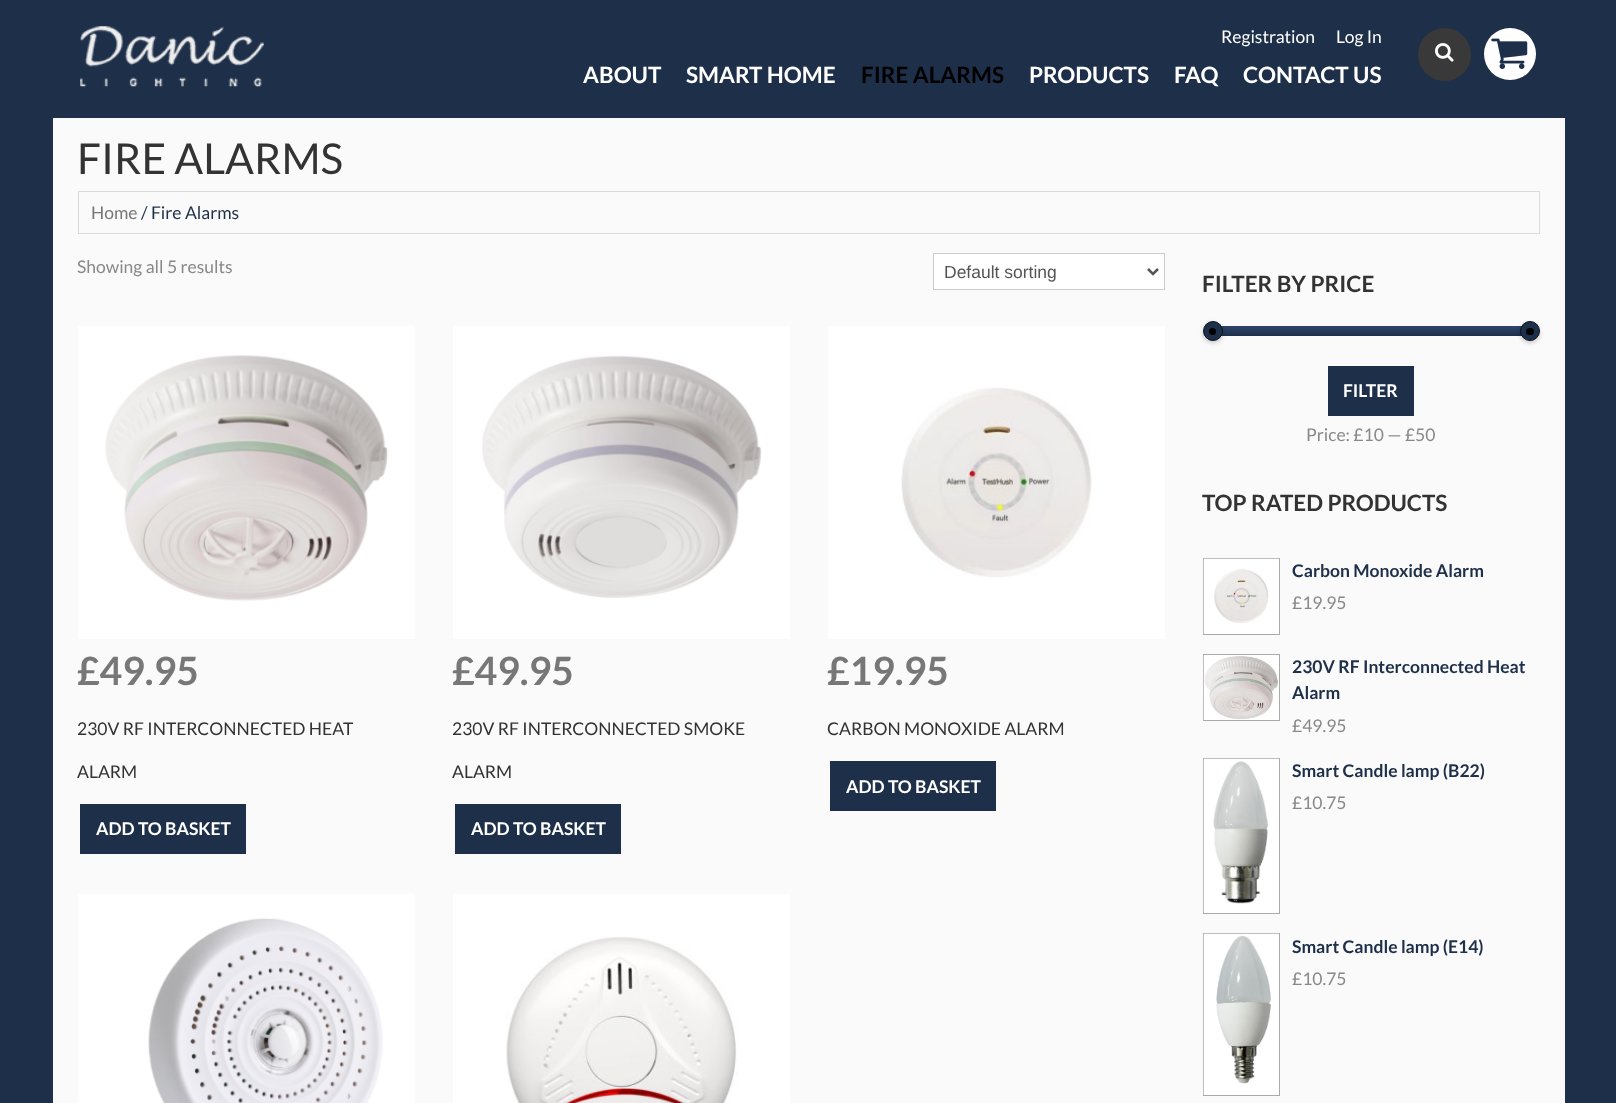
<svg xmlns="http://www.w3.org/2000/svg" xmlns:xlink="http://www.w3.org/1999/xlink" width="1616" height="1103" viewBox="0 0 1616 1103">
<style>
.cls-1{font:17.5px Lato;fill:#ffffff}
.cls-2{font:bold 22.5px Lato;fill:#ffffff}
.cls-3{font:bold 22.5px Lato;fill:#000000}
.cls-4{font:42.5px Lato;fill:#333333}
.cls-5{font:17.5px Lato;fill:#777777}
.cls-6{font:17.5px Lato;fill:#1e2f49}
.cls-7{font:17.5px Lato;fill:#888888}
.cls-8{font:17.5px Liberation Sans;fill:#555555}
.cls-9{font:bold 39px Lato;fill:#777777}
.cls-10{font:17.5px Lato;fill:#333333}
.cls-11{font:bold 17.5px Lato;fill:#ffffff}
.cls-12{font:bold 22.5px Lato;fill:#333333}
.cls-13{font:bold 17.5px Lato;fill:#1e2f49}
</style>
<defs>
<linearGradient id="g1" gradientUnits="userSpaceOnUse" x1="1371" y1="326" x2="1371" y2="336"><stop offset="0" stop-color="#2d466d"/><stop offset="1" stop-color="#1e2f49"/></linearGradient>
</defs>
<rect width="100%" height="100%" fill="#1e2f49"/>
<rect fill="#fafafa" x="53" y="118" width="1512" height="985"/>
<image xlink:href="image0.png" x="80" y="26" width="184" height="61"/>
<circle fill="#3a3939" cx="1444.5" cy="54.5" r="26.5"/>
<image xlink:href="image1.png" x="1435" y="43" width="19" height="19"/>
<circle fill="#ffffff" cx="1510" cy="54" r="26"/>
<image xlink:href="image2.png" x="1491" y="38" width="37" height="31"/>
<rect fill="none" stroke="#dbdada" x="78.5" y="191.5" width="1461" height="42"/>
<rect fill="#ffffff" stroke="#cccccc" x="933.5" y="253.5" width="231" height="36"/>
<path fill="none" stroke="#555555" stroke-width="2.5" d="M1148 269L1153 274L1158 269"/>
<rect fill="#ffffff" x="78" y="326" width="337" height="313"/>
<image xlink:href="image3.png" x="105" y="355" width="283" height="246"/>
<rect fill="#1e2f49" x="80" y="804" width="166" height="50"/>
<rect fill="#ffffff" x="453" y="326" width="337" height="313"/>
<image xlink:href="image4.png" x="482" y="355" width="280" height="243"/>
<rect fill="#1e2f49" x="455" y="804" width="166" height="50"/>
<rect fill="#ffffff" x="828" y="326" width="337" height="313"/>
<image xlink:href="image5.png" x="901" y="387" width="191" height="191"/>
<rect fill="#1e2f49" x="830" y="761" width="166" height="50"/>
<rect fill="#ffffff" x="78" y="894" width="337" height="209"/>
<image xlink:href="image6.png" x="148" y="918" width="235" height="185"/>
<rect fill="#ffffff" x="453" y="894" width="337" height="209"/>
<image xlink:href="image7.png" x="506" y="936" width="232" height="167"/>
<rect fill="url(#g1)" x="1221" y="326" width="301" height="10"/>
<rect fill="#000000" fill-opacity="0.2" filter="blur(2px)" x="1203" y="323" width="20" height="20" rx="10"/>
<circle fill="#1e2f49" stroke="#0c131e" cx="1213" cy="331" r="9.5"/>
<circle fill="#000001" cx="1212.5" cy="331.5" r="3.5"/>
<rect fill="#000000" fill-opacity="0.2" filter="blur(2px)" x="1520" y="323" width="20" height="20" rx="10"/>
<circle fill="#1e2f49" stroke="#0c131e" cx="1530" cy="331" r="9.5"/>
<rect fill="#000001" x="1526" y="328" width="8" height="7" rx="3.5"/>
<rect fill="#1e2f49" x="1328" y="366" width="86" height="50"/>
<rect fill="#ffffff" stroke="#aaaaaa" x="1203.5" y="558.5" width="76" height="76"/>
<image xlink:href="image8.png" x="1203" y="558" width="76" height="76"/>
<rect fill="#ffffff" stroke="#aaaaaa" x="1203.5" y="654.5" width="76" height="66"/>
<image xlink:href="image9.png" x="1203" y="655" width="75" height="65"/>
<rect fill="#ffffff" stroke="#aaaaaa" x="1203.5" y="758.5" width="76" height="155"/>
<image xlink:href="image10.png" x="1203" y="758" width="76" height="155"/>
<rect fill="none" stroke="#aaaaaa" x="1203.5" y="933.5" width="76" height="162"/>
<image xlink:href="image11.png" x="1203" y="933" width="76" height="162"/>
<text class="cls-1" x="1221" y="43">Registration</text>
<text class="cls-1" x="1336" y="43">Log In</text>
<text class="cls-2" x="583" y="83">ABOUT</text>
<text class="cls-2" x="686" y="83">SMART HOME</text>
<text class="cls-3" x="861" y="83">FIRE ALARMS</text>
<text class="cls-2" x="1029" y="83">PRODUCTS</text>
<text class="cls-2" x="1174" y="83">FAQ</text>
<text class="cls-2" x="1243" y="83">CONTACT US</text>
<text class="cls-4" x="77" y="174">FIRE ALARMS</text>
<text class="cls-5" x="91" y="219">Home</text>
<text class="cls-6" x="141" y="219">/ Fire Alarms</text>
<text class="cls-7" x="77" y="273">Showing all 5 results</text>
<text class="cls-8" x="944" y="278">Default sorting</text>
<text class="cls-9" x="77" y="685">£49.95</text>
<text class="cls-10" x="77" y="735">230V RF INTERCONNECTED HEAT</text>
<text class="cls-10" x="77" y="778">ALARM</text>
<text class="cls-11" x="96" y="835">ADD TO BASKET</text>
<text class="cls-9" x="452" y="685">£49.95</text>
<text class="cls-10" x="452" y="735">230V RF INTERCONNECTED SMOKE</text>
<text class="cls-10" x="452" y="778">ALARM</text>
<text class="cls-11" x="471" y="835">ADD TO BASKET</text>
<text class="cls-9" x="827" y="685">£19.95</text>
<text class="cls-10" x="827" y="735">CARBON MONOXIDE ALARM</text>
<text class="cls-11" x="846" y="793">ADD TO BASKET</text>
<text class="cls-12" x="1202" y="292">FILTER BY PRICE</text>
<text class="cls-11" x="1343" y="397">FILTER</text>
<text class="cls-7" x="1306" y="441">Price: £10 — £50</text>
<text class="cls-12" x="1202" y="511">TOP RATED PRODUCTS</text>
<text class="cls-13" x="1292" y="577">Carbon Monoxide Alarm</text>
<text class="cls-7" x="1292" y="609">£19.95</text>
<text class="cls-13"><tspan x="1292" y="673">230V RF Interconnected Heat</tspan><tspan x="1292" y="699">Alarm</tspan></text>
<text class="cls-7" x="1292" y="732">£49.95</text>
<text class="cls-13" x="1292" y="777">Smart Candle lamp (B22)</text>
<text class="cls-7" x="1292" y="809">£10.75</text>
<text class="cls-13" x="1292" y="953">Smart Candle lamp (E14)</text>
<text class="cls-7" x="1292" y="985">£10.75</text>
</svg>
